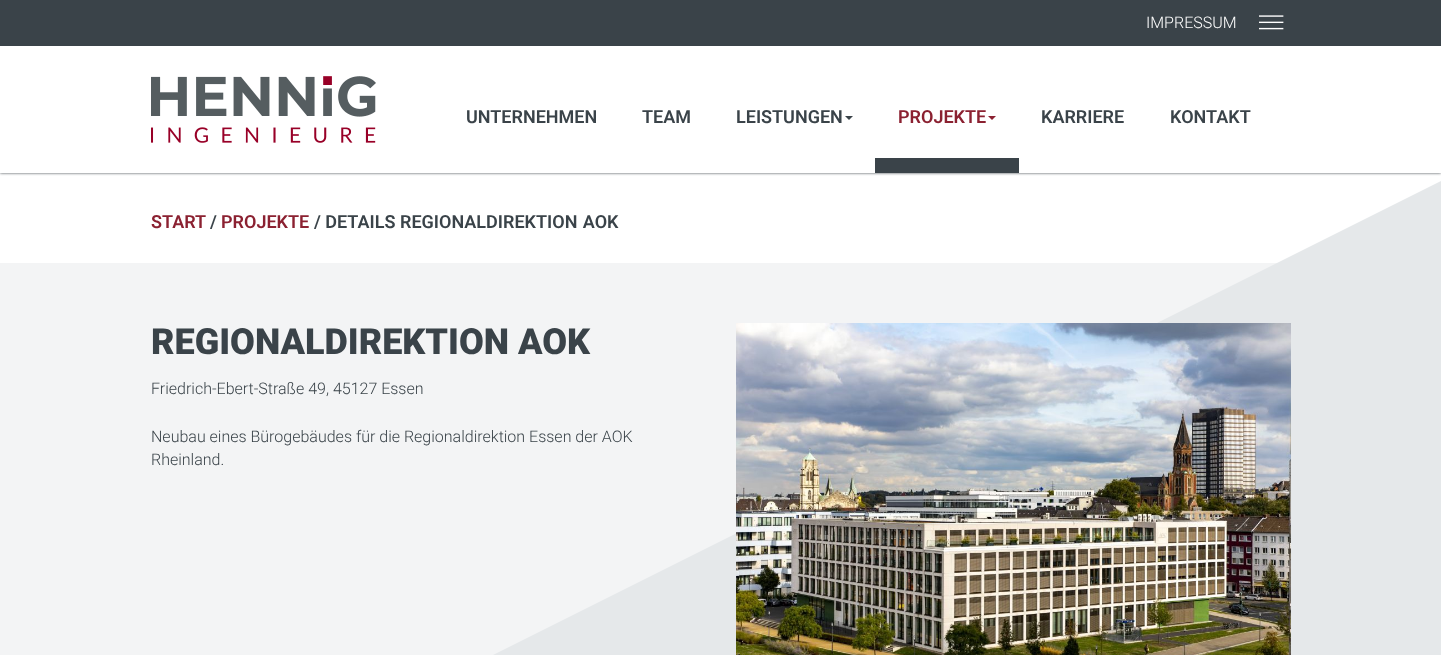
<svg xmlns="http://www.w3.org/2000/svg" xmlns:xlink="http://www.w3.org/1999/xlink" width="1441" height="655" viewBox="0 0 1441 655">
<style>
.cls-1{font:300 16px Roboto;fill:#ffffff}
.cls-2{font:600 18px Roboto;fill:#3a4349}
.cls-3{font:600 18px Roboto;fill:#8b2131}
.cls-4{font:900 36px Roboto;fill:#3a4349}
.cls-5{font:300 16px Roboto;fill:#3a4349}
</style>
<defs>
<clipPath id="clip1"><rect x="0" y="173" width="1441" height="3"/></clipPath>
</defs>
<rect width="100%" height="100%" fill="#f3f4f5"/>
<rect fill="#ffffff" x="0" y="46" width="1441" height="217"/>
<g clip-path="url(#clip1)">
<rect fill="#3a4349" filter="blur(1.5px)" x="0" y="46" width="1441" height="127"/>
</g>
<rect fill="#3a4349" x="0" y="0" width="1441" height="46"/>
<image xlink:href="image0.png" x="1259" y="15" width="25" height="15"/>
<image xlink:href="image1.png" x="151" y="76" width="225" height="67"/>
<path fill="#3a4349" d="M845 116H853L849 120Z"/>
<rect fill="#3a4349" x="875" y="158" width="144" height="15"/>
<path fill="#8b2131" d="M988 116H996L992 120Z"/>
<path fill="#e5e8ea" d="M1441 181V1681H-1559Z"/>
<image xlink:href="image2.png" x="736" y="323" width="555" height="332"/>
<text class="cls-1" x="1146" y="28">IMPRESSUM</text>
<text class="cls-2" x="466" y="123">UNTERNEHMEN</text>
<text class="cls-2" x="642" y="123">TEAM</text>
<text class="cls-2" x="736" y="123">LEISTUNGEN</text>
<text class="cls-3" x="898" y="123">PROJEKTE</text>
<text class="cls-2" x="1041" y="123">KARRIERE</text>
<text class="cls-2" x="1170" y="123">KONTAKT</text>
<text class="cls-3" x="151" y="228">START</text>
<text class="cls-2" x="210" y="228">/</text>
<text class="cls-3" x="221" y="228">PROJEKTE</text>
<text class="cls-2" x="314" y="228">/ DETAILS</text>
<text class="cls-2" x="400" y="228" word-spacing="1">REGIONALDIREKTION AOK</text>
<text class="cls-4" x="151" y="354">REGIONALDIREKTION AOK</text>
<text class="cls-5" x="151" y="394">Friedrich-Ebert-Straße 49, 45127 Essen</text>
<text class="cls-5"><tspan x="151" y="442">Neubau eines Bürogebäudes für die Regionaldirektion Essen der AOK</tspan><tspan x="151" y="465">Rheinland.</tspan></text>
</svg>
